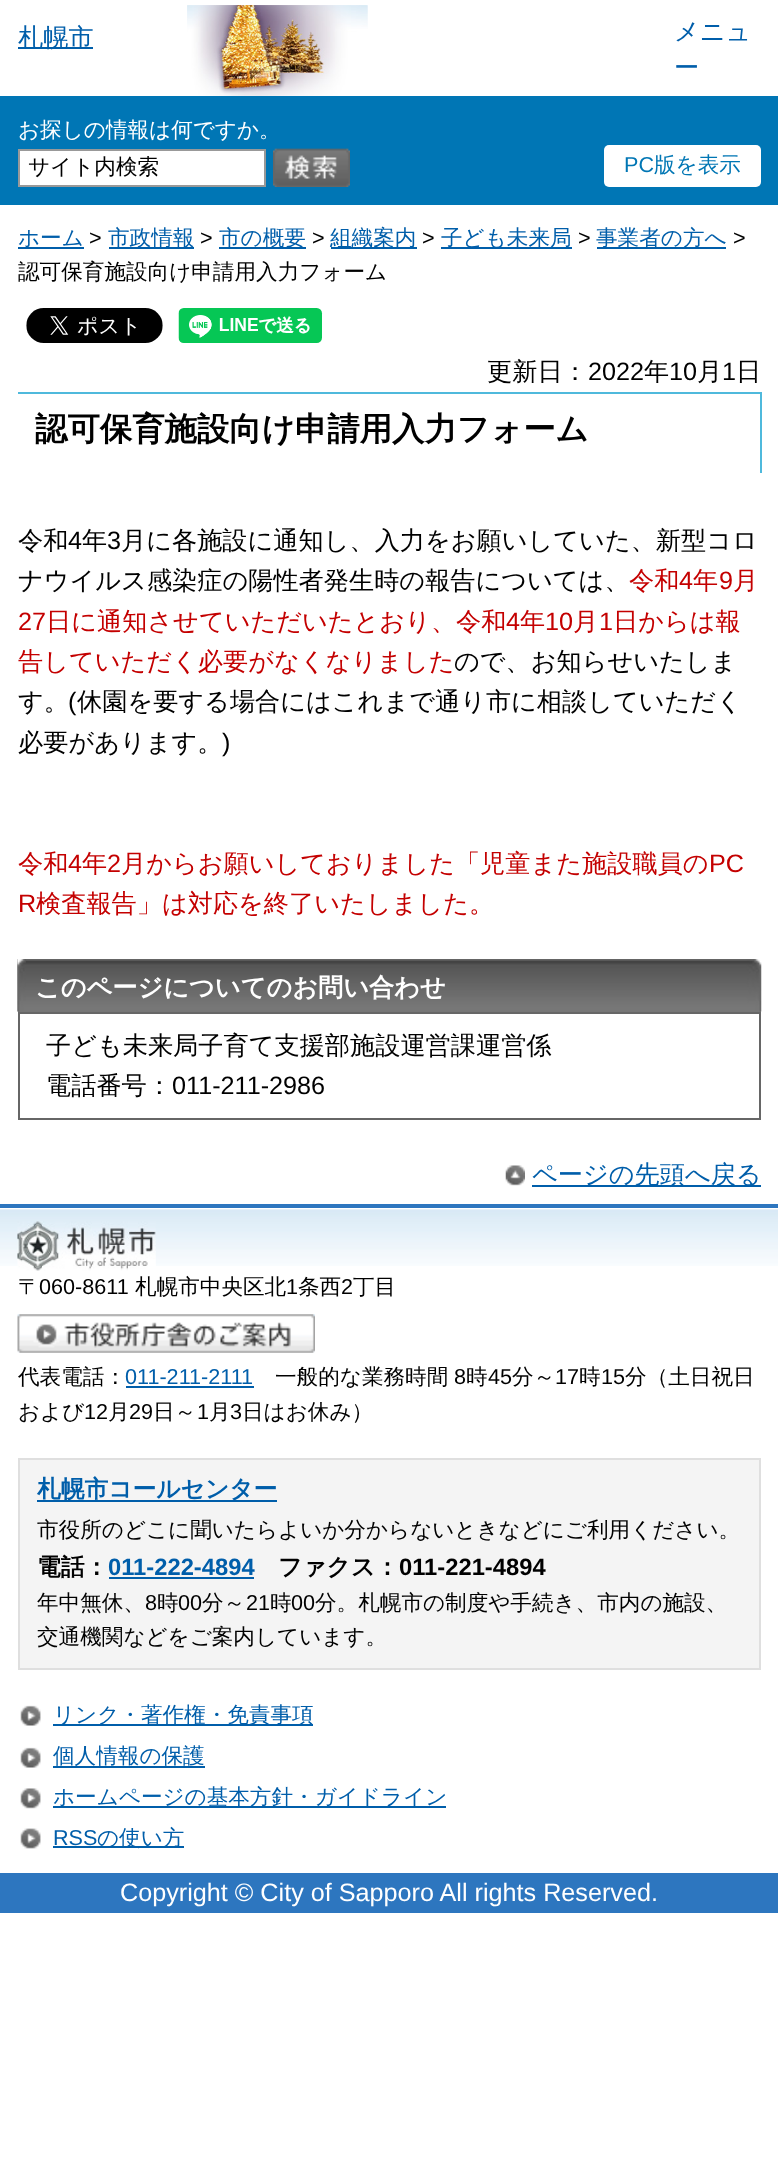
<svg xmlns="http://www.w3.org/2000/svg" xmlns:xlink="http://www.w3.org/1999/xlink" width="778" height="2169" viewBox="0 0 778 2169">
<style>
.cls-1{font:500 25.2px WenQuanYi Zen Hei;fill:#005eaa}
.cls-2{font:500 21.6px WenQuanYi Zen Hei;fill:#ffffff}
.cls-3{font:500 21.6px WenQuanYi Zen Hei;fill:#000000}
.cls-4{font:21.6px Liberation Sans;fill:#0076b4}
.cls-5{font:500 21.6px WenQuanYi Zen Hei;fill:#0076b4}
.cls-6{font:500 21.6px WenQuanYi Zen Hei;fill:#005eaa}
.cls-7{font:21.6px Liberation Sans;fill:#000000}
.cls-8{font:500 25.2px WenQuanYi Zen Hei;fill:#000000}
.cls-9{font:25.2px Liberation Sans;fill:#000000}
.cls-10{font:bold 32.4px WenQuanYi Zen Hei;fill:#000000}
.cls-11{font:500 25.2px WenQuanYi Zen Hei;fill:#c40000}
.cls-12{font:25.2px Liberation Sans;fill:#c40000}
.cls-13{font:bold 25.2px WenQuanYi Zen Hei;fill:#ffffff}
.cls-14{font:21.6px Liberation Sans;fill:#005eaa}
.cls-15{font:bold 23.75px WenQuanYi Zen Hei;fill:#005eaa}
.cls-16{font:bold 23.75px WenQuanYi Zen Hei;fill:#000000}
.cls-17{font:bold 23.75px Liberation Sans;fill:#005eaa}
.cls-18{font:bold 23.75px Liberation Sans;fill:#000000}
.cls-19{font:25.2px Liberation Sans;fill:#ffffff}
</style>
<rect width="100%" height="100%" fill="#ffffff"/>
<image xlink:href="image0.png" x="187" y="5" width="181" height="91"/>
<image xlink:href="image1.png" x="187" y="5" width="181" height="82"/>
<rect fill="#005eaa" x="18" y="47" width="75" height="2"/>
<rect fill="#0076b5" x="0" y="96" width="778" height="109"/>
<rect fill="#ffffff" stroke="#999999" stroke-width="2" x="19" y="150" width="246" height="36"/>
<image xlink:href="image2.png" x="273" y="148" width="77" height="39"/>
<rect fill="#ffffff" x="604" y="145" width="157" height="42" rx="5"/>
<rect fill="#005eaa" x="18" y="247" width="66" height="2"/>
<rect fill="#005eaa" x="109" y="247" width="85" height="2"/>
<rect fill="#005eaa" x="219" y="247" width="87" height="2"/>
<rect fill="#005eaa" x="331" y="247" width="86" height="2"/>
<rect fill="#005eaa" x="441" y="247" width="131" height="2"/>
<rect fill="#005eaa" x="597" y="247" width="129" height="2"/>
<image xlink:href="image3.png" x="26" y="308" width="137" height="35"/>
<image xlink:href="image4.png" x="178" y="308" width="145" height="35"/>
<rect fill="#4fb9dc" x="18" y="392" width="743" height="2"/>
<rect fill="#4fb9dc" x="760" y="392" width="2" height="81"/>
<rect fill="#777777" x="18" y="1011" width="743" height="1"/>
<image xlink:href="image5.png" x="17" y="959" width="745" height="53"/>
<image xlink:href="image6.png" x="17" y="959" width="9" height="53"/>
<rect fill="none" stroke="#666666" stroke-width="2" x="19" y="1013" width="741" height="106"/>
<image xlink:href="image7.png" x="505" y="1165" width="20" height="21"/>
<rect fill="#005eaa" x="532" y="1185" width="229" height="2"/>
<image xlink:href="image8.png" x="0" y="1209" width="778" height="57"/>
<rect fill="#2d76bf" x="0" y="1204" width="778" height="4"/>
<image xlink:href="image9.png" x="17" y="1221" width="139" height="50"/>
<image xlink:href="image10.png" x="17" y="1314" width="298" height="39"/>
<rect fill="#005eaa" x="126" y="1386" width="128" height="2"/>
<rect fill="#f4f4f4" stroke="#dfdfdf" stroke-width="2" x="19" y="1459" width="741" height="210"/>
<rect fill="#005eaa" x="37" y="1500" width="240" height="2"/>
<rect fill="#005eaa" x="109" y="1577" width="145" height="2"/>
<image xlink:href="image11.png" x="20" y="1705" width="21" height="21"/>
<rect fill="#005eaa" x="53" y="1724" width="260" height="2"/>
<image xlink:href="image11.png" x="20" y="1747" width="21" height="21"/>
<rect fill="#005eaa" x="53" y="1766" width="152" height="2"/>
<image xlink:href="image12.png" x="20" y="1788" width="21" height="21"/>
<rect fill="#005eaa" x="53" y="1806" width="393" height="2"/>
<image xlink:href="image13.png" x="20" y="1828" width="21" height="21"/>
<rect fill="#005eaa" x="53" y="1846" width="131" height="2"/>
<rect fill="#2d76bf" x="0" y="1873" width="778" height="40"/>
<text class="cls-1" x="18" y="46">札幌市</text>
<text class="cls-1"><tspan x="674" y="40">メニュ</tspan><tspan x="674" y="76">ー</tspan></text>
<text class="cls-2" x="18" y="137">お探しの情報は何ですか。</text>
<text class="cls-3" x="28" y="174">サイト内検索</text>
<text class="cls-4" x="624" y="172">PC</text>
<text class="cls-5" x="654" y="172">版を表示</text>
<text class="cls-6" x="18" y="245">ホーム</text>
<text class="cls-7" x="89" y="245">&gt;</text>
<text class="cls-6" x="108" y="245">市政情報</text>
<text class="cls-7" x="200" y="245">&gt;</text>
<text class="cls-6" x="219" y="245">市の概要</text>
<text class="cls-7" x="312" y="245">&gt;</text>
<text class="cls-6" x="330" y="245">組織案内</text>
<text class="cls-7" x="422" y="245">&gt;</text>
<text class="cls-6" x="441" y="245">子ども未来局</text>
<text class="cls-7" x="578" y="245">&gt;</text>
<text class="cls-6" x="596" y="245">事業者の方へ</text>
<text class="cls-7" x="733" y="245">&gt;</text>
<text class="cls-3" x="18" y="279">認可保育施設向け申請用入力フォーム</text>
<text class="cls-8" x="487" y="380">更新日：</text>
<text class="cls-9" x="588" y="380">2022</text>
<text class="cls-8" x="644" y="380">年</text>
<text class="cls-9" x="669" y="380">10</text>
<text class="cls-8" x="697" y="380">月</text>
<text class="cls-9" x="722" y="380">1</text>
<text class="cls-8" x="736" y="380">日</text>
<text class="cls-10" x="35" y="440">認可保育施設向け申請用入力フォーム</text>
<text class="cls-8" x="18" y="549">令和</text>
<text class="cls-9" x="68" y="549">4</text>
<text class="cls-8" x="82" y="549">年</text>
<text class="cls-9" x="107" y="549">3</text>
<text class="cls-8" x="121" y="549">月に各施設に通知し、入力をお願いしていた、新型コロ</text>
<text class="cls-8" x="18" y="589">ナウイルス感染症の陽性者発生時の報告については、</text>
<text class="cls-11" x="629" y="589">令和</text>
<text class="cls-12" x="679" y="589">4</text>
<text class="cls-11" x="693" y="589">年</text>
<text class="cls-12" x="719" y="589">9</text>
<text class="cls-11" x="733" y="589">月</text>
<text class="cls-12" x="18" y="630">27</text>
<text class="cls-11" x="46" y="630">日に通知させていただいたとおり、令和</text>
<text class="cls-12" x="506" y="630">4</text>
<text class="cls-11" x="520" y="630">年</text>
<text class="cls-12" x="545" y="630">10</text>
<text class="cls-11" x="573" y="630">月</text>
<text class="cls-12" x="599" y="630">1</text>
<text class="cls-11" x="613" y="630">日からは報</text>
<text class="cls-11" x="18" y="670">告していただく必要がなくなりました</text>
<text class="cls-8" x="454" y="670">ので、お知らせいたしま</text>
<text class="cls-8" x="18" y="710">す。</text>
<text class="cls-9" x="68" y="710">(</text>
<text class="cls-8" x="77" y="710">休園を要する場合にはこれまで通り市に相談していただく</text>
<text class="cls-8" x="18" y="751">必要があります。</text>
<text class="cls-9" x="222" y="751">)</text>
<text class="cls-11" x="18" y="872">令和</text>
<text class="cls-12" x="68" y="872">4</text>
<text class="cls-11" x="82" y="872">年</text>
<text class="cls-12" x="107" y="872">2</text>
<text class="cls-11" x="121" y="872">月からお願いしておりました「児童また施設職員の</text>
<text class="cls-12" x="709" y="872">PC</text>
<text class="cls-12" x="18" y="912">R</text>
<text class="cls-11" x="36" y="912">検査報告」は対応を終了いたしました。</text>
<text class="cls-13" x="35" y="996">このページについてのお問い合わせ</text>
<text class="cls-8"><tspan x="46" y="1054">子ども未来局子育て支援部施設運営課運営係</tspan><tspan x="46" y="1094">電話番号：</tspan></text>
<text class="cls-9" x="172" y="1094">011-211-2986</text>
<text class="cls-1" x="532" y="1183">ページの先頭へ戻る</text>
<text class="cls-3" x="18" y="1294">〒</text>
<text class="cls-7" x="39" y="1294">060-8611</text>
<text class="cls-3" x="135" y="1294">札幌市中央区北</text>
<text class="cls-7" x="286" y="1294">1</text>
<text class="cls-3" x="298" y="1294">条西</text>
<text class="cls-7" x="341" y="1294">2</text>
<text class="cls-3" x="353" y="1294">丁目</text>
<text class="cls-3" x="18" y="1384">代表電話：</text>
<text class="cls-14" x="125" y="1384">011-211-2111</text>
<text class="cls-3" x="275" y="1384">一般的な業務時間</text>
<text class="cls-7" x="454" y="1384">8</text>
<text class="cls-3" x="466" y="1384">時</text>
<text class="cls-7" x="488" y="1384">45</text>
<text class="cls-3" x="512" y="1384">分～</text>
<text class="cls-7" x="555" y="1384">17</text>
<text class="cls-3" x="579" y="1384">時</text>
<text class="cls-7" x="601" y="1384">15</text>
<text class="cls-3" x="625" y="1384">分（土日祝日</text>
<text class="cls-3" x="18" y="1419">および</text>
<text class="cls-7" x="84" y="1419">12</text>
<text class="cls-3" x="108" y="1419">月</text>
<text class="cls-7" x="129" y="1419">29</text>
<text class="cls-3" x="153" y="1419">日～</text>
<text class="cls-7" x="197" y="1419">1</text>
<text class="cls-3" x="209" y="1419">月</text>
<text class="cls-7" x="230" y="1419">3</text>
<text class="cls-3" x="242" y="1419">日はお休み）</text>
<text class="cls-15" x="37" y="1497">札幌市コールセンター</text>
<text class="cls-3" x="37" y="1537">市役所のどこに聞いたらよいか分からないときなどにご利用ください。</text>
<text class="cls-16" x="37" y="1575">電話：</text>
<text class="cls-17" x="108" y="1575">011-222-4894</text>
<text class="cls-16" x="278" y="1575">ファクス：</text>
<text class="cls-18" x="399" y="1575">011-221-4894</text>
<text class="cls-3" x="37" y="1610">年中無休、</text>
<text class="cls-7" x="145" y="1610">8</text>
<text class="cls-3" x="157" y="1610">時</text>
<text class="cls-7" x="178" y="1610">00</text>
<text class="cls-3" x="202" y="1610">分～</text>
<text class="cls-7" x="246" y="1610">21</text>
<text class="cls-3" x="270" y="1610">時</text>
<text class="cls-7" x="291" y="1610">00</text>
<text class="cls-3" x="315" y="1610">分。札幌市の制度や手続き、市内の施設、</text>
<text class="cls-3" x="37" y="1644">交通機関などをご案内しています。</text>
<text class="cls-6"><tspan x="53" y="1722">リンク・著作権・免責事項</tspan><tspan x="53" y="1763">個人情報の保護</tspan><tspan x="53" y="1804">ホームページの基本方針・ガイドライン</tspan></text>
<text class="cls-14" x="53" y="1845">RSS</text>
<text class="cls-6" x="97" y="1845">の使い方</text>
<text class="cls-19" x="120" y="1901">Copyright © City of Sapporo All rights Reserved.</text>
</svg>
